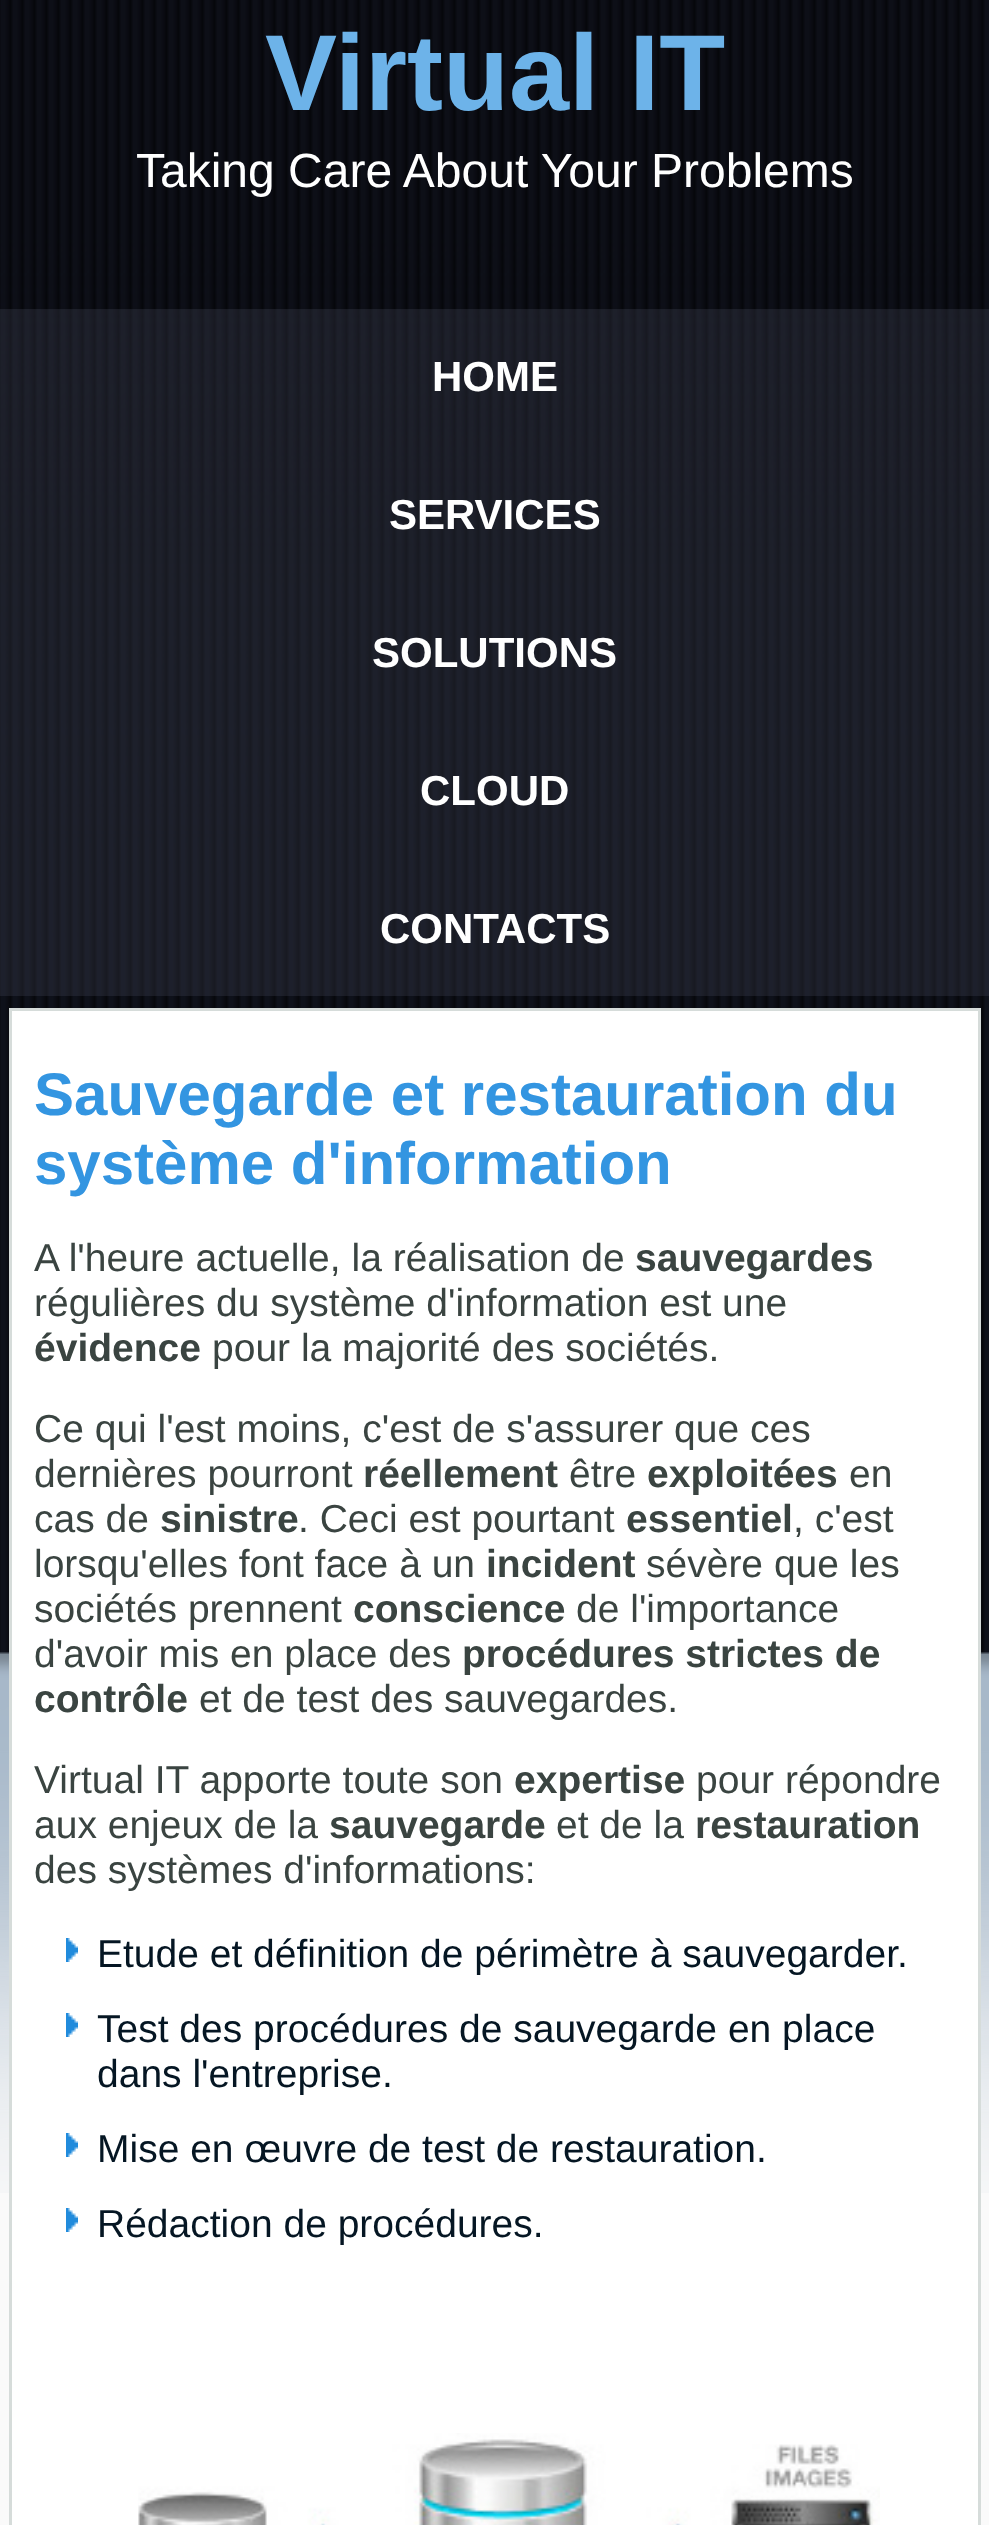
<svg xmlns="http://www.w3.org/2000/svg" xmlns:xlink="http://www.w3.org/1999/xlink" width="989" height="2525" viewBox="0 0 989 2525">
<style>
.cls-1{font:bold 108px Liberation Sans;fill:#6db3e9}
.cls-2{font:48px Liberation Sans;fill:#ffffff}
.cls-3{font:bold 42px Liberation Sans;fill:#ffffff}
.cls-4{font:bold 60px Liberation Sans;fill:#3395e1}
.cls-5{font:39px Liberation Sans;fill:#3a4441}
.cls-6{font:bold 39px Liberation Sans;fill:#3a4441}
.cls-7{font:39px Liberation Sans;fill:#051623}
</style>
<rect width="100%" height="100%" fill="#fafafa"/>
<image xlink:href="image0.png" x="0" y="0" width="989" height="2193"/>
<rect fill="#434656" fill-opacity="0.3" x="0" y="309" width="989" height="687"/>
<rect fill="#ffffff" x="12" y="1011" width="966" height="1514"/>
<rect fill="#d6dcda" x="9" y="1008" width="972" height="3"/>
<rect fill="#d6dcda" x="978" y="1008" width="3" height="1517"/>
<rect fill="#d6dcda" x="9" y="1008" width="3" height="1517"/>
<image xlink:href="image1.png" x="66" y="1938" width="12" height="24"/>
<image xlink:href="image1.png" x="66" y="2013" width="12" height="24"/>
<image xlink:href="image1.png" x="66" y="2133" width="12" height="24"/>
<image xlink:href="image1.png" x="66" y="2208" width="12" height="24"/>
<image xlink:href="image2.png" x="138" y="2433" width="742" height="92"/>
<text class="cls-1" x="265" y="110">Virtual IT</text>
<text class="cls-2" x="136" y="187">Taking Care About Your Problems</text>
<text class="cls-3" x="432" y="391">HOME</text>
<text class="cls-3" x="389" y="529">SERVICES</text>
<text class="cls-3" x="372" y="667">SOLUTIONS</text>
<text class="cls-3" x="420" y="805">CLOUD</text>
<text class="cls-3" x="380" y="943">CONTACTS</text>
<text class="cls-4"><tspan x="34" y="1115">Sauvegarde et restauration du</tspan><tspan x="34" y="1184">système d'information</tspan></text>
<text class="cls-5" x="34" y="1271">A l'heure actuelle, la réalisation de</text>
<text class="cls-6" x="635" y="1271">sauvegardes</text>
<text class="cls-5" x="34" y="1316">régulières du système d'information est une</text>
<text class="cls-6" x="34" y="1361">évidence</text>
<text class="cls-5" x="212" y="1361">pour la majorité des sociétés.</text>
<text class="cls-5"><tspan x="34" y="1442">Ce qui l'est moins, c'est de s'assurer que ces</tspan><tspan x="34" y="1487">dernières pourront</tspan></text>
<text class="cls-6" x="363" y="1487">réellement</text>
<text class="cls-5" x="569" y="1487">être</text>
<text class="cls-6" x="647" y="1487">exploitées</text>
<text class="cls-5" x="849" y="1487">en</text>
<text class="cls-5" x="34" y="1532">cas de</text>
<text class="cls-6" x="160" y="1532">sinistre</text>
<text class="cls-5" x="298" y="1532">. Ceci est pourtant</text>
<text class="cls-6" x="626" y="1532">essentiel</text>
<text class="cls-5" x="793" y="1532">, c'est</text>
<text class="cls-5" x="34" y="1577">lorsqu'elles font face à un</text>
<text class="cls-6" x="486" y="1577">incident</text>
<text class="cls-5" x="646" y="1577">sévère que les</text>
<text class="cls-5" x="34" y="1622">sociétés prennent</text>
<text class="cls-6" x="353" y="1622">conscience</text>
<text class="cls-5" x="576" y="1622">de l'importance</text>
<text class="cls-5" x="34" y="1667">d'avoir mis en place des</text>
<text class="cls-6" x="462" y="1667">procédures strictes de</text>
<text class="cls-6" x="34" y="1712">contrôle</text>
<text class="cls-5" x="199" y="1712">et de test des sauvegardes.</text>
<text class="cls-5" x="34" y="1793">Virtual IT apporte toute son</text>
<text class="cls-6" x="514" y="1793">expertise</text>
<text class="cls-5" x="696" y="1793">pour répondre</text>
<text class="cls-5" x="34" y="1838">aux enjeux de la</text>
<text class="cls-6" x="329" y="1838">sauvegarde</text>
<text class="cls-5" x="556" y="1838">et de la</text>
<text class="cls-6" x="695" y="1838">restauration</text>
<text class="cls-5" x="34" y="1883">des systèmes d'informations:</text>
<text class="cls-7"><tspan x="97" y="1967">Etude et définition de périmètre à sauvegarder.</tspan><tspan x="97" y="2042">Test des procédures de sauvegarde en place</tspan><tspan x="97" y="2087">dans l'entreprise.</tspan><tspan x="97" y="2162">Mise en œuvre de test de restauration.</tspan><tspan x="97" y="2237">Rédaction de procédures.</tspan></text>
</svg>
